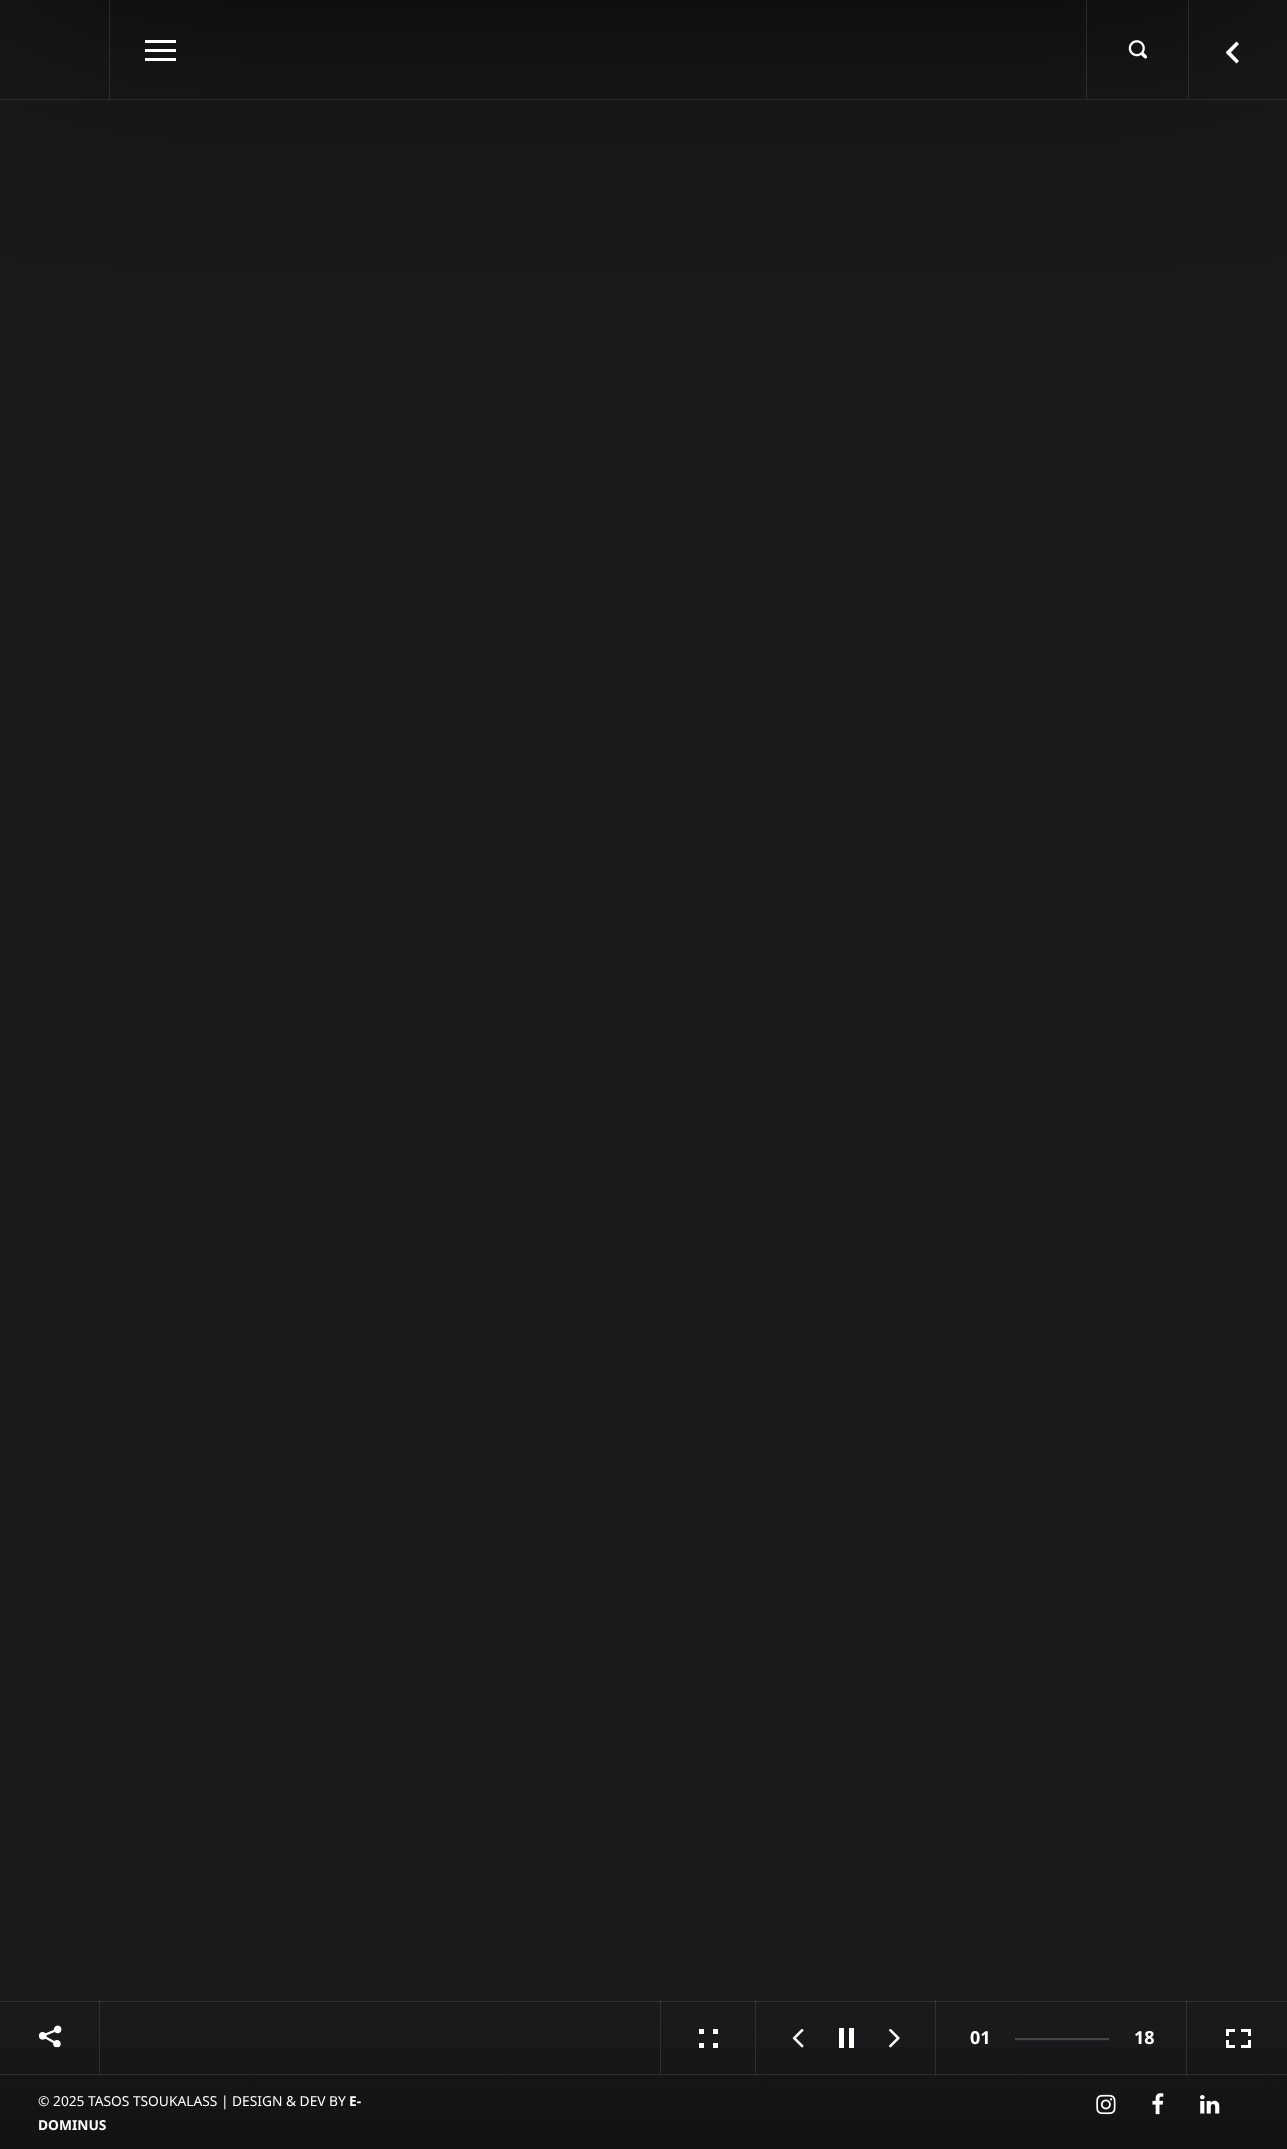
<svg xmlns="http://www.w3.org/2000/svg" xmlns:xlink="http://www.w3.org/1999/xlink" width="1287" height="2149" viewBox="0 0 1287 2149">
<style>
.cls-1{font:bold 18px Noto Sans;fill:#ffffff}
.cls-2{font:13.75px Noto Sans;fill:#ffffff}
.cls-3{font:bold 13.75px Noto Sans;fill:#ffffff}
</style>
<defs>
<linearGradient id="g1" gradientUnits="userSpaceOnUse" x1="644" y1="2000" x2="644" y2="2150"><stop offset="0" stop-color="#191a1c"/><stop offset="1" stop-color="#121214"/></linearGradient>
<linearGradient id="g2" gradientUnits="userSpaceOnUse" x1="644" y1="2000" x2="644" y2="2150"><stop offset="0" stop-color="#303133"/><stop offset="1" stop-color="#2a2a2c"/></linearGradient>
<linearGradient id="g3" gradientUnits="userSpaceOnUse" x1="644" y1="2000" x2="644" y2="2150"><stop offset="0" stop-color="#454647"/><stop offset="1" stop-color="#3f3f41"/></linearGradient>
<clipPath id="clip1"><rect x="1015" y="2038" width="94" height="3"/></clipPath>
</defs>
<rect width="100%" height="100%" fill="#191a1c"/>
<rect fill="#303133" x="0" y="99" width="1287" height="1"/>
<rect fill="#000000" filter="blur(125px)" x="0" y="-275" width="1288" height="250"/>
<rect fill="#ffffff" fill-opacity="0.1" x="109" y="0" width="1" height="99"/>
<rect fill="#ffffff" x="145" y="49" width="31" height="3"/>
<rect fill="#ffffff" x="145" y="40" width="31" height="3"/>
<rect fill="#ffffff" x="145" y="58" width="31" height="3"/>
<rect fill="#ffffff" fill-opacity="0.1" x="1086" y="0" width="1" height="99"/>
<image xlink:href="image0.png" x="1128" y="40" width="20" height="19"/>
<rect fill="#ffffff" fill-opacity="0.1" x="1188" y="0" width="1" height="99"/>
<path fill="#ffffff" d="M1226 52L1236.5 41.5L1239 44L1228.5 55Z"/>
<path fill="#ffffff" d="M1228.5 50L1239 61L1236.5 63.5L1226 53Z"/>
<rect fill="url(#g1)" x="0" y="2047" width="1287" height="102"/>
<rect fill="url(#g2)" x="0" y="2074" width="1287" height="1"/>
<rect fill="url(#g2)" x="1186" y="2001" width="1" height="74"/>
<rect fill="url(#g3)" x="1186" y="2074" width="1" height="1"/>
<rect fill="url(#g2)" x="935" y="2001" width="1" height="74"/>
<rect fill="url(#g3)" x="935" y="2074" width="1" height="1"/>
<rect fill="url(#g2)" x="755" y="2001" width="1" height="74"/>
<rect fill="url(#g3)" x="755" y="2074" width="1" height="1"/>
<rect fill="url(#g2)" x="660" y="2001" width="1" height="74"/>
<rect fill="url(#g3)" x="660" y="2074" width="1" height="1"/>
<rect fill="url(#g2)" x="99" y="2001" width="1" height="74"/>
<rect fill="url(#g3)" x="99" y="2074" width="1" height="1"/>
<rect fill="#303133" x="0" y="2001" width="1287" height="1"/>
<rect fill="#454647" x="99" y="2001" width="1" height="1"/>
<image xlink:href="image1.png" x="38" y="2025" width="24" height="23"/>
<rect fill="#454647" x="660" y="2001" width="1" height="1"/>
<rect fill="#454647" x="755" y="2001" width="1" height="1"/>
<rect fill="#ffffff" x="699" y="2029" width="5" height="5"/>
<rect fill="#ffffff" x="713" y="2029" width="5" height="5"/>
<rect fill="#ffffff" x="699" y="2043" width="5" height="5"/>
<rect fill="#ffffff" x="713" y="2043" width="5" height="5"/>
<rect fill="#454647" x="935" y="2001" width="1" height="1"/>
<image xlink:href="image2.png" x="792" y="2029" width="12" height="19"/>
<rect fill="#ffffff" x="839" y="2028" width="5" height="20"/>
<rect fill="#ffffff" x="849" y="2028" width="5" height="20"/>
<image xlink:href="image3.png" x="889" y="2029" width="11" height="19"/>
<rect fill="#454647" x="1186" y="2001" width="1" height="1"/>
<g clip-path="url(#clip1)">
<path fill="none" stroke="#454648" stroke-width="2.5" d="M1015 2039H1109"/>
</g>
<rect fill="#ffffff" x="1226" y="2029" width="9" height="3"/>
<rect fill="#ffffff" x="1226" y="2029" width="3" height="7"/>
<rect fill="#ffffff" x="1241" y="2029" width="9" height="3"/>
<rect fill="#ffffff" x="1248" y="2029" width="3" height="7"/>
<rect fill="#ffffff" x="1226" y="2045" width="9" height="3"/>
<rect fill="#ffffff" x="1226" y="2040" width="3" height="8"/>
<rect fill="#ffffff" x="1241" y="2045" width="9" height="3"/>
<rect fill="#ffffff" x="1248" y="2040" width="3" height="8"/>
<image xlink:href="image4.png" x="1096" y="2094" width="20" height="21"/>
<image xlink:href="image5.png" x="1152" y="2093" width="12" height="22"/>
<image xlink:href="image6.png" x="1200" y="2095" width="20" height="19"/>
<text class="cls-1" x="970" y="2044">01</text>
<text class="cls-1" x="1134" y="2044">18</text>
<text class="cls-2" x="38" y="2106">© 2025 TASOS TSOUKALASS | DESIGN &amp; DEV BY</text>
<text class="cls-3" x="349" y="2106">E-</text>
<text class="cls-3" x="38" y="2130">DOMINUS</text>
</svg>
